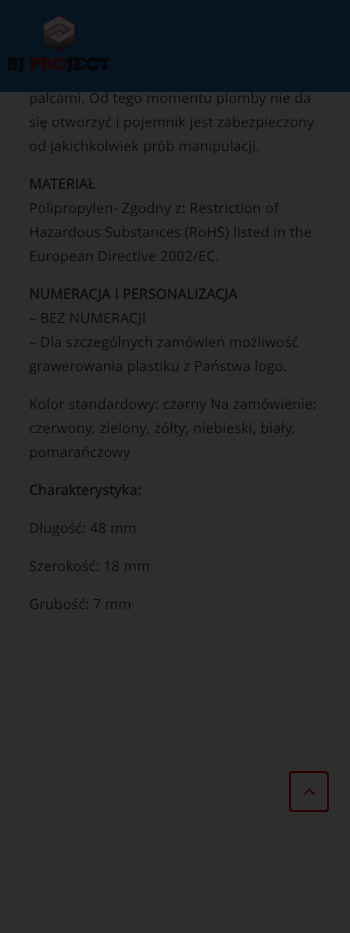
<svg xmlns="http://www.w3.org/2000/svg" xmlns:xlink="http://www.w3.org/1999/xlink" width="350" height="933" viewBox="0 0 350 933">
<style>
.cls-1{font:14px Open Sans;letter-spacing:0.2px;fill:#0c0c0c}
.cls-2{font:bold 14px Open Sans;letter-spacing:0.2px;fill:#0c0c0c}
</style>
<rect width="100%" height="100%" fill="#2e2e2e"/>
<rect fill="#051522" x="0" y="0" width="350" height="92"/>
<image xlink:href="image0.png" x="7" y="15" width="103" height="58"/>
<rect fill="none" stroke="#2d0000" stroke-width="2" x="290" y="772" width="38" height="39" rx="3"/>
<image xlink:href="image1.png" x="303" y="788" width="12" height="7"/>
<text class="cls-1"><tspan x="29" y="103">palcami. Od tego momentu plomby nie da</tspan><tspan x="29" y="127">się otworzyć i pojemnik jest zabezpieczony</tspan><tspan x="29" y="151">od jakichkolwiek prób manipulacji.</tspan></text>
<text class="cls-2" x="29" y="189">MATERIAŁ</text>
<text class="cls-1"><tspan x="29" y="213">Polipropylen- Zgodny z: Restriction of</tspan><tspan x="29" y="237">Hazardous Substances (RoHS) listed in the</tspan><tspan x="29" y="261">European Directive 2002/EC.</tspan></text>
<text class="cls-2" x="29" y="299">NUMERACJA I PERSONALIZACJA</text>
<text class="cls-1"><tspan x="29" y="323">– BEZ NUMERACJI</tspan><tspan x="29" y="347">– Dla szczególnych zamówień możliwość</tspan><tspan x="29" y="371">grawerowania plastiku z Państwa logo.</tspan></text>
<text class="cls-1"><tspan x="29" y="409">Kolor standardowy: czarny Na zamówienie:</tspan><tspan x="29" y="433" word-spacing="0.5">czerwony, zielony, żółty, niebieski, biały,</tspan><tspan x="29" y="457">pomarańczowy</tspan></text>
<text class="cls-2" x="29" y="495">Charakterystyka:</text>
<text class="cls-1" x="29" y="533">Długość: 48 mm</text>
<text class="cls-1" x="29" y="571">Szerokość: 18 mm</text>
<text class="cls-1" x="29" y="609">Grubość: 7 mm</text>
</svg>
